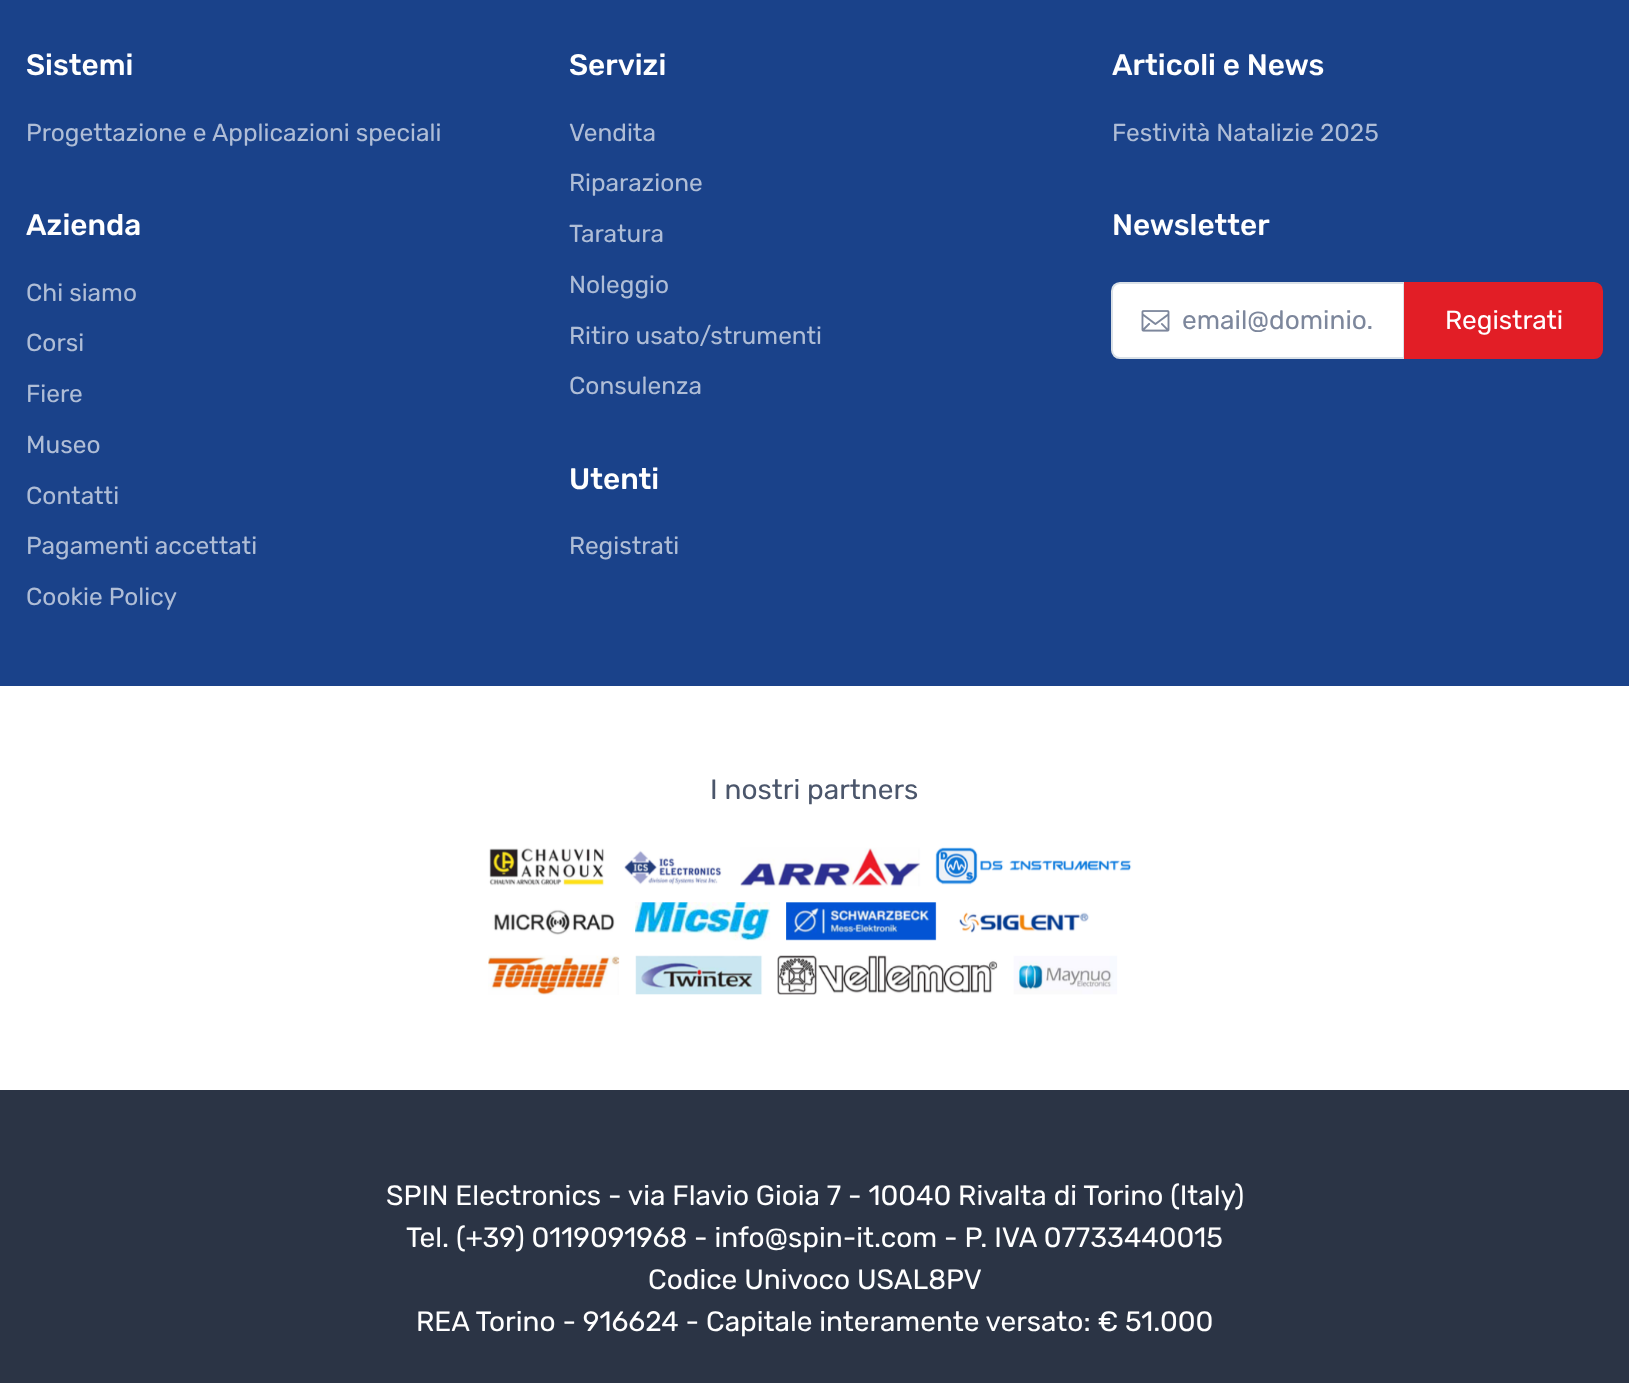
<svg xmlns="http://www.w3.org/2000/svg" xmlns:xlink="http://www.w3.org/1999/xlink" width="1629" height="1383" viewBox="0 0 1629 1383">
<style>
.cls-1{font:500 29.75px Rubik;fill:#ffffff}
.cls-2{font:24.5px Rubik;fill:#afbdd6}
.cls-3{font:26.25px Rubik;fill:#7d879c}
.cls-4{font:26.25px Rubik;fill:#ffffff}
.cls-5{font:28px Rubik;fill:#4b566b}
.cls-6{font:28px Rubik;fill:#ffffff}
</style>
<rect width="100%" height="100%" fill="#1a428a"/>
<path fill="#ffffff" stroke="#dae1e7" stroke-width="2" d="M1120 283H1404V358H1120C1115.5 358 1112 354.5 1112 350V291C1112 286.5 1115.5 283 1120 283Z"/>
<image xlink:href="image0.png" x="1141" y="310" width="29" height="22"/>
<path fill="#e21e26" stroke="#e21e26" stroke-width="2" d="M1405 283H1594C1598.5 283 1602 286.5 1602 291V350C1602 354.5 1598.5 358 1594 358H1405Z"/>
<rect fill="#ffffff" x="0" y="686" width="1629" height="404"/>
<image xlink:href="image1.png" x="488" y="847" width="644" height="148"/>
<rect fill="#2b3445" x="0" y="1090" width="1629" height="293"/>
<text class="cls-1" x="26" y="75">Sistemi</text>
<text class="cls-2" x="26" y="141">Progettazione e Applicazioni speciali</text>
<text class="cls-1" x="26" y="235">Azienda</text>
<text class="cls-2" x="26" y="301">Chi siamo</text>
<text class="cls-2" x="26" y="351">Corsi</text>
<text class="cls-2" x="26" y="402">Fiere</text>
<text class="cls-2" x="26" y="453">Museo</text>
<text class="cls-2" x="26" y="504">Contatti</text>
<text class="cls-2" x="26" y="554">Pagamenti accettati</text>
<text class="cls-2" x="26" y="605">Cookie Policy</text>
<text class="cls-1" x="569" y="75">Servizi</text>
<text class="cls-2" x="569" y="141">Vendita</text>
<text class="cls-2" x="569" y="191">Riparazione</text>
<text class="cls-2" x="569" y="242">Taratura</text>
<text class="cls-2" x="569" y="293">Noleggio</text>
<text class="cls-2" x="569" y="344">Ritiro usato/strumenti</text>
<text class="cls-2" x="569" y="394">Consulenza</text>
<text class="cls-1" x="569" y="489">Utenti</text>
<text class="cls-2" x="569" y="554">Registrati</text>
<text class="cls-1" x="1112" y="75">Articoli e News</text>
<text class="cls-2" x="1112" y="141">Festività Natalizie 2025</text>
<text class="cls-1" x="1112" y="235">Newsletter</text>
<text class="cls-3" x="1182" y="329">email@dominio.</text>
<text class="cls-4" x="1445" y="329">Registrati</text>
<text class="cls-5" x="710" y="799">I nostri partners</text>
<text class="cls-6" x="386" y="1205">SPIN Electronics - via Flavio Gioia 7 - 10040 Rivalta di Torino (Italy)</text>
<text class="cls-6" x="406" y="1247">Tel. (+39) 0119091968 - info@spin-it.com - P. IVA 07733440015</text>
<text class="cls-6" x="648" y="1289">Codice Univoco USAL8PV</text>
<text class="cls-6" x="416" y="1331">REA Torino - 916624 - Capitale interamente versato: € 51.000</text>
</svg>
